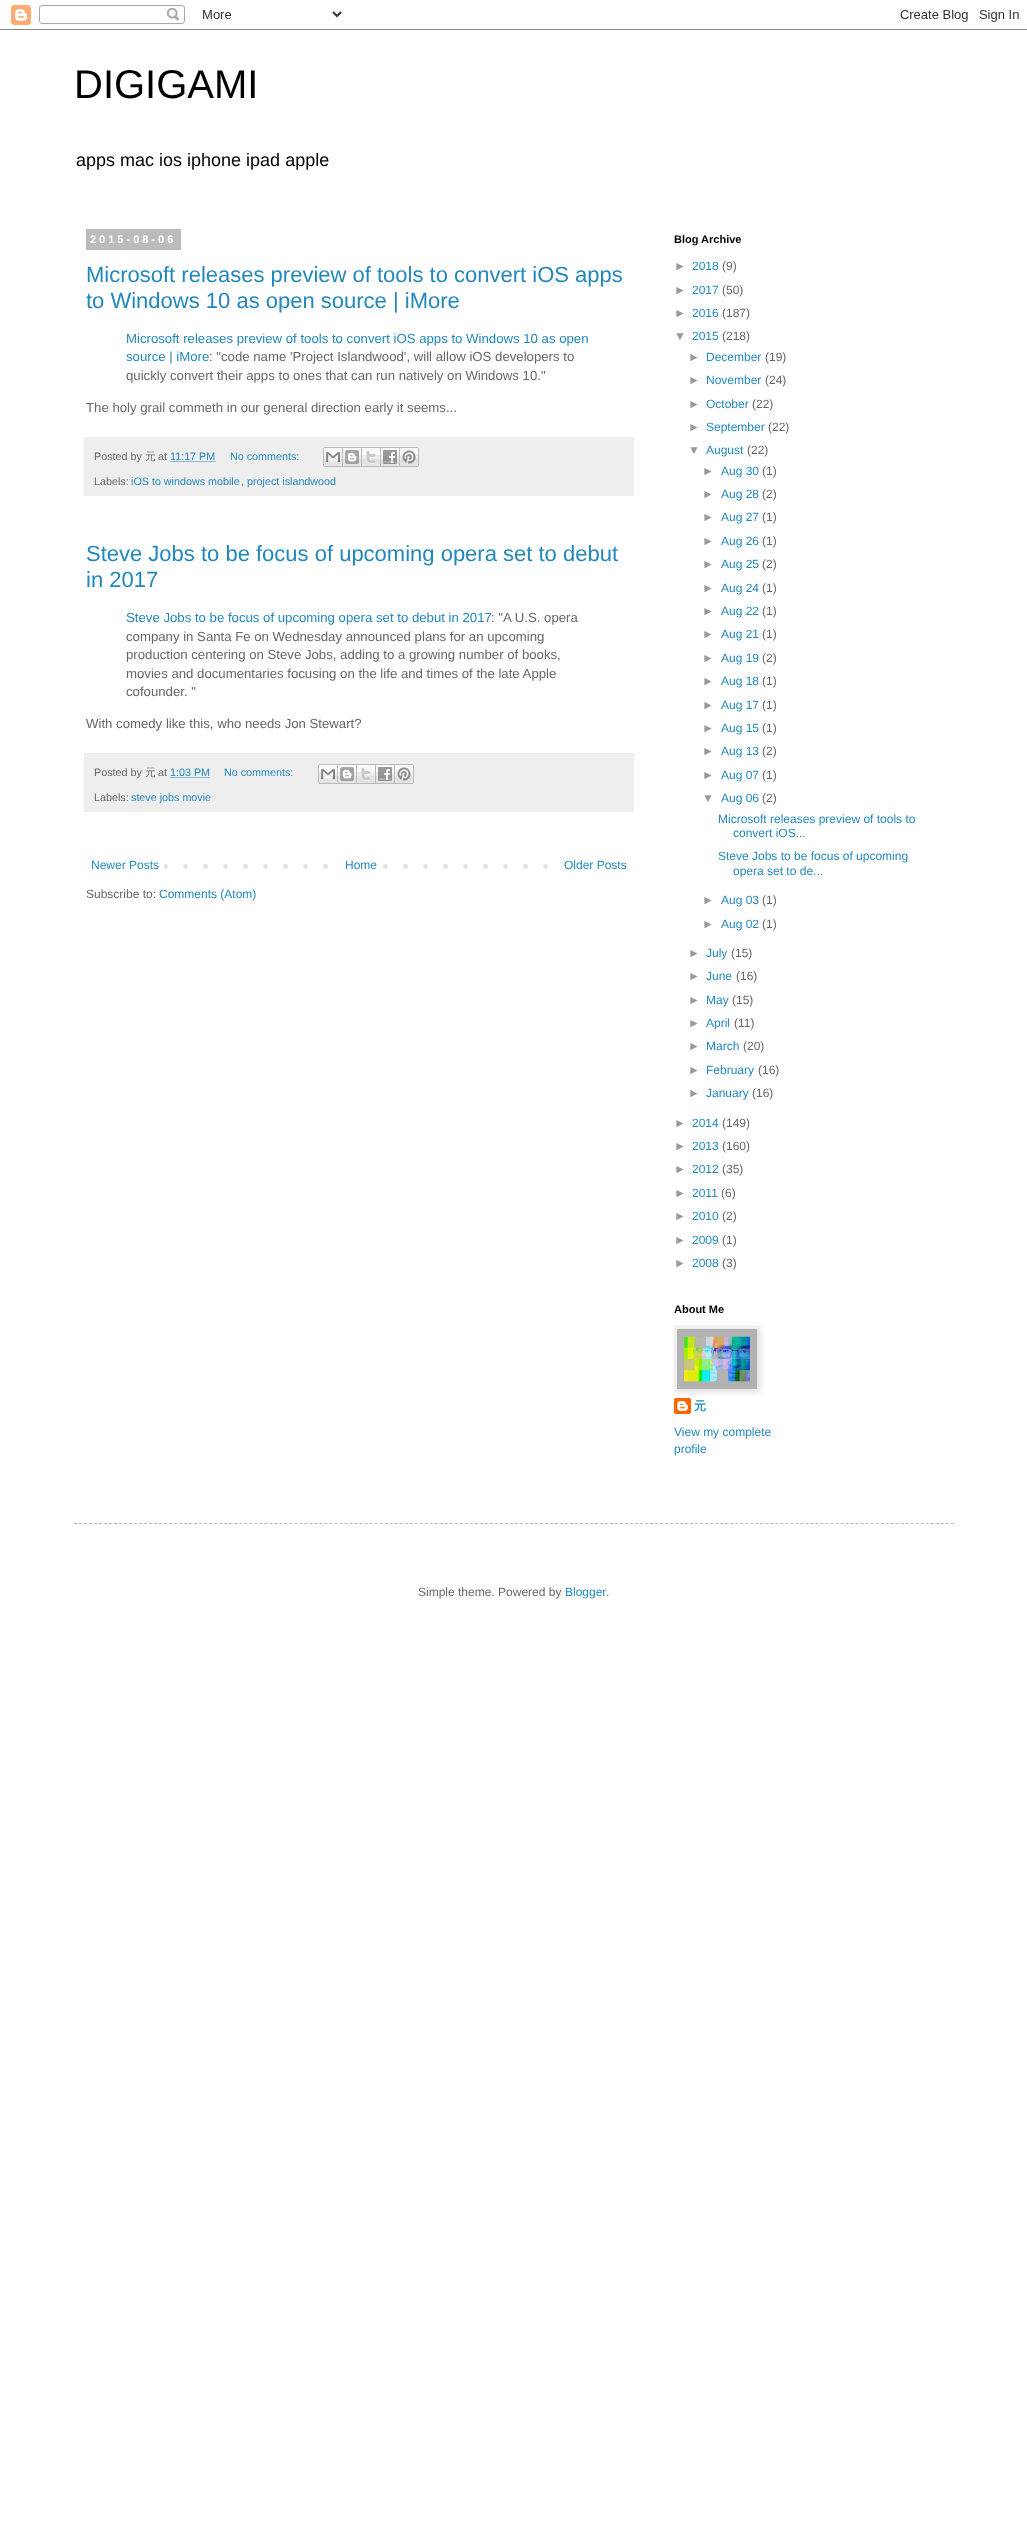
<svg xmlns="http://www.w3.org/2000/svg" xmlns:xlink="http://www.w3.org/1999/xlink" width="1027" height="2536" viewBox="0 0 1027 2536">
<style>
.cls-1{font:40px Liberation Sans;fill:#000000}
.cls-2{font:18px Liberation Sans;fill:#000000}
.cls-3{font:bold 11px Liberation Sans;letter-spacing:3px;fill:#ffffff}
.cls-4{font:22px Liberation Sans;fill:#2288bb}
.cls-5{font:13.2px Liberation Sans;fill:#2288bb}
.cls-6{font:13.2px Liberation Sans;fill:#666666}
.cls-7{font:10.75px Liberation Sans;fill:#666666}
.cls-8{font:500 10.75px WenQuanYi Zen Hei;fill:#666666}
.cls-9{font:10.75px Liberation Sans;fill:#2288bb}
.cls-10{font:12px Liberation Sans;fill:#2288bb}
.cls-11{font:12px Liberation Sans;fill:#666666}
.cls-12{font:bold 11px Liberation Sans;fill:#000000}
.cls-13{font:12px Liberation Sans;fill:#999999}
.cls-14{font:bold 12px WenQuanYi Zen Hei;fill:#2288bb}
</style>
<rect width="100%" height="100%" fill="#ffffff"/>
<image xlink:href="image0.png" x="0" y="5" width="1027" height="25"/>
<rect fill="#bbbbbb" x="86" y="229" width="95" height="21"/>
<rect fill="#eeeeee" x="84" y="437" width="550" height="59"/>
<path fill="none" stroke="#2288bb" stroke-dasharray="1 1" d="M170.5 461.5H216"/>
<image xlink:href="image1.png" x="323" y="447" width="20" height="20"/>
<image xlink:href="image2.png" x="343" y="447" width="19" height="20"/>
<image xlink:href="image3.png" x="362" y="447" width="19" height="20"/>
<image xlink:href="image4.png" x="381" y="447" width="19" height="20"/>
<image xlink:href="image5.png" x="400" y="447" width="19" height="20"/>
<rect fill="#eeeeee" x="84" y="753" width="550" height="59"/>
<path fill="none" stroke="#2288bb" stroke-dasharray="1 1" d="M170.5 777.5H210.5"/>
<image xlink:href="image1.png" x="318" y="764" width="20" height="20"/>
<image xlink:href="image2.png" x="338" y="764" width="19" height="20"/>
<image xlink:href="image3.png" x="357" y="764" width="19" height="20"/>
<image xlink:href="image4.png" x="376" y="764" width="19" height="20"/>
<image xlink:href="image5.png" x="395" y="764" width="19" height="20"/>
<image xlink:href="image6.png" x="164" y="864" width="384" height="5"/>
<rect fill="#ffffff" x="343" y="864" width="26" height="5"/>
<image xlink:href="image8.png" x="674" y="1398" width="17" height="16"/>
<rect fill="#000000" fill-opacity="0.1" filter="blur(2.5px)" x="675" y="1327" width="86" height="66"/>
<rect fill="none" stroke="#eeeeee" x="674.5" y="1326.5" width="85" height="65"/>
<image xlink:href="image7.png" x="677" y="1329" width="80" height="60"/>
<path fill="none" stroke="#bbbbbb" stroke-dasharray="3 2.01" d="M74 1523.5H954"/>
<text class="cls-1" x="74" y="98">DIGIGAMI</text>
<text class="cls-2" x="76" y="166">apps mac ios iphone ipad apple</text>
<text class="cls-3" x="90" y="243">2015-08-06</text>
<text class="cls-4"><tspan x="86" y="282">Microsoft releases preview of tools to convert iOS apps</tspan><tspan x="86" y="308">to Windows 10 as open source | iMore</tspan></text>
<text class="cls-5"><tspan x="126" y="343">Microsoft releases preview of tools to convert iOS apps to Windows 10 as open</tspan><tspan x="126" y="361">source | iMore</tspan></text>
<text class="cls-6" x="209" y="361">: "code name 'Project Islandwood', will allow iOS developers to</text>
<text class="cls-6" x="126" y="380">quickly convert their apps to ones that can run natively on Windows 10."</text>
<text class="cls-6" x="86" y="412">The holy grail commeth in our general direction early it seems...</text>
<text class="cls-7" x="94" y="460">Posted by</text>
<text class="cls-8" x="145" y="460">元</text>
<text class="cls-7" x="158" y="460">at</text>
<text class="cls-9" x="170" y="460">11:17 PM</text>
<text class="cls-9" x="230" y="460">No comments:</text>
<text class="cls-7" x="94" y="485">Labels:</text>
<text class="cls-9" x="131" y="485">iOS to windows mobile</text>
<text class="cls-7" x="241" y="485">,</text>
<text class="cls-9" x="247" y="485">project islandwood</text>
<text class="cls-4"><tspan x="86" y="561">Steve Jobs to be focus of upcoming opera set to debut</tspan><tspan x="86" y="587">in 2017</tspan></text>
<text class="cls-5" x="126" y="622">Steve Jobs to be focus of upcoming opera set to debut in 2017</text>
<text class="cls-6" x="491" y="622">: "A U.S. opera</text>
<text class="cls-6"><tspan x="126" y="641">company in Santa Fe on Wednesday announced plans for an upcoming</tspan><tspan x="126" y="659">production centering on Steve Jobs, adding to a growing number of books,</tspan><tspan x="126" y="678">movies and documentaries focusing on the life and times of the late Apple</tspan><tspan x="126" y="696">cofounder. "</tspan></text>
<text class="cls-6" x="86" y="728">With comedy like this, who needs Jon Stewart?</text>
<text class="cls-7" x="94" y="776">Posted by</text>
<text class="cls-8" x="145" y="776">元</text>
<text class="cls-7" x="158" y="776">at</text>
<text class="cls-9" x="170" y="776">1:03 PM</text>
<text class="cls-9" x="224" y="776">No comments:</text>
<text class="cls-7" x="94" y="801">Labels:</text>
<text class="cls-9" x="131" y="801">steve jobs movie</text>
<text class="cls-10" x="91" y="869">Newer Posts</text>
<text class="cls-10" x="345" y="869">Home</text>
<text class="cls-10" x="564" y="869">Older Posts</text>
<text class="cls-11" x="86" y="898">Subscribe to:</text>
<text class="cls-10" x="159" y="898">Comments (Atom)</text>
<text class="cls-12" x="674" y="243">Blog Archive</text>
<text class="cls-13" x="674" y="270">►</text>
<text class="cls-10" x="692" y="270">2018</text>
<text class="cls-11" x="722" y="270">(9)</text>
<text class="cls-13" x="674" y="294">►</text>
<text class="cls-10" x="692" y="294">2017</text>
<text class="cls-11" x="722" y="294">(50)</text>
<text class="cls-13" x="674" y="317">►</text>
<text class="cls-10" x="692" y="317">2016</text>
<text class="cls-11" x="722" y="317">(187)</text>
<text class="cls-13" x="674" y="340">▼</text>
<text class="cls-10" x="692" y="340">2015</text>
<text class="cls-11" x="722" y="340">(218)</text>
<text class="cls-13" x="688" y="361">►</text>
<text class="cls-10" x="706" y="361">December</text>
<text class="cls-11" x="765" y="361">(19)</text>
<text class="cls-13" x="688" y="384">►</text>
<text class="cls-10" x="706" y="384">November</text>
<text class="cls-11" x="765" y="384">(24)</text>
<text class="cls-13" x="688" y="408">►</text>
<text class="cls-10" x="706" y="408">October</text>
<text class="cls-11" x="752" y="408">(22)</text>
<text class="cls-13" x="688" y="431">►</text>
<text class="cls-10" x="706" y="431">September</text>
<text class="cls-11" x="768" y="431">(22)</text>
<text class="cls-13" x="688" y="454">▼</text>
<text class="cls-10" x="706" y="454">August</text>
<text class="cls-11" x="747" y="454">(22)</text>
<text class="cls-13" x="702" y="475">►</text>
<text class="cls-10" x="721" y="475">Aug 30</text>
<text class="cls-11" x="762" y="475">(1)</text>
<text class="cls-13" x="702" y="498">►</text>
<text class="cls-10" x="721" y="498">Aug 28</text>
<text class="cls-11" x="762" y="498">(2)</text>
<text class="cls-13" x="702" y="521">►</text>
<text class="cls-10" x="721" y="521">Aug 27</text>
<text class="cls-11" x="762" y="521">(1)</text>
<text class="cls-13" x="702" y="545">►</text>
<text class="cls-10" x="721" y="545">Aug 26</text>
<text class="cls-11" x="762" y="545">(1)</text>
<text class="cls-13" x="702" y="568">►</text>
<text class="cls-10" x="721" y="568">Aug 25</text>
<text class="cls-11" x="762" y="568">(2)</text>
<text class="cls-13" x="702" y="592">►</text>
<text class="cls-10" x="721" y="592">Aug 24</text>
<text class="cls-11" x="762" y="592">(1)</text>
<text class="cls-13" x="702" y="615">►</text>
<text class="cls-10" x="721" y="615">Aug 22</text>
<text class="cls-11" x="762" y="615">(1)</text>
<text class="cls-13" x="702" y="638">►</text>
<text class="cls-10" x="721" y="638">Aug 21</text>
<text class="cls-11" x="762" y="638">(1)</text>
<text class="cls-13" x="702" y="662">►</text>
<text class="cls-10" x="721" y="662">Aug 19</text>
<text class="cls-11" x="762" y="662">(2)</text>
<text class="cls-13" x="702" y="685">►</text>
<text class="cls-10" x="721" y="685">Aug 18</text>
<text class="cls-11" x="762" y="685">(1)</text>
<text class="cls-13" x="702" y="709">►</text>
<text class="cls-10" x="721" y="709">Aug 17</text>
<text class="cls-11" x="762" y="709">(1)</text>
<text class="cls-13" x="702" y="732">►</text>
<text class="cls-10" x="721" y="732">Aug 15</text>
<text class="cls-11" x="762" y="732">(1)</text>
<text class="cls-13" x="702" y="755">►</text>
<text class="cls-10" x="721" y="755">Aug 13</text>
<text class="cls-11" x="762" y="755">(2)</text>
<text class="cls-13" x="702" y="779">►</text>
<text class="cls-10" x="721" y="779">Aug 07</text>
<text class="cls-11" x="762" y="779">(1)</text>
<text class="cls-13" x="702" y="802">▼</text>
<text class="cls-10" x="721" y="802">Aug 06</text>
<text class="cls-11" x="762" y="802">(2)</text>
<text class="cls-10" x="718" y="823">Microsoft releases preview of tools to</text>
<text class="cls-10" x="733" y="837">convert iOS...</text>
<text class="cls-10" x="718" y="860">Steve Jobs to be focus of upcoming</text>
<text class="cls-10" x="733" y="875">opera set to de...</text>
<text class="cls-13" x="702" y="904">►</text>
<text class="cls-10" x="721" y="904">Aug 03</text>
<text class="cls-11" x="762" y="904">(1)</text>
<text class="cls-13" x="702" y="928">►</text>
<text class="cls-10" x="721" y="928">Aug 02</text>
<text class="cls-11" x="762" y="928">(1)</text>
<text class="cls-13" x="688" y="957">►</text>
<text class="cls-10" x="706" y="957">July</text>
<text class="cls-11" x="731" y="957">(15)</text>
<text class="cls-13" x="688" y="980">►</text>
<text class="cls-10" x="706" y="980">June</text>
<text class="cls-11" x="736" y="980">(16)</text>
<text class="cls-13" x="688" y="1004">►</text>
<text class="cls-10" x="706" y="1004">May</text>
<text class="cls-11" x="732" y="1004">(15)</text>
<text class="cls-13" x="688" y="1027">►</text>
<text class="cls-10" x="706" y="1027">April</text>
<text class="cls-11" x="734" y="1027">(11)</text>
<text class="cls-13" x="688" y="1050">►</text>
<text class="cls-10" x="706" y="1050">March</text>
<text class="cls-11" x="743" y="1050">(20)</text>
<text class="cls-13" x="688" y="1074">►</text>
<text class="cls-10" x="706" y="1074">February</text>
<text class="cls-11" x="758" y="1074">(16)</text>
<text class="cls-13" x="688" y="1097">►</text>
<text class="cls-10" x="706" y="1097">January</text>
<text class="cls-11" x="752" y="1097">(16)</text>
<text class="cls-13" x="674" y="1127">►</text>
<text class="cls-10" x="692" y="1127">2014</text>
<text class="cls-11" x="722" y="1127">(149)</text>
<text class="cls-13" x="674" y="1150">►</text>
<text class="cls-10" x="692" y="1150">2013</text>
<text class="cls-11" x="722" y="1150">(160)</text>
<text class="cls-13" x="674" y="1173">►</text>
<text class="cls-10" x="692" y="1173">2012</text>
<text class="cls-11" x="722" y="1173">(35)</text>
<text class="cls-13" x="674" y="1197">►</text>
<text class="cls-10" x="692" y="1197">2011</text>
<text class="cls-11" x="721" y="1197">(6)</text>
<text class="cls-13" x="674" y="1220">►</text>
<text class="cls-10" x="692" y="1220">2010</text>
<text class="cls-11" x="722" y="1220">(2)</text>
<text class="cls-13" x="674" y="1244">►</text>
<text class="cls-10" x="692" y="1244">2009</text>
<text class="cls-11" x="722" y="1244">(1)</text>
<text class="cls-13" x="674" y="1267">►</text>
<text class="cls-10" x="692" y="1267">2008</text>
<text class="cls-11" x="722" y="1267">(3)</text>
<text class="cls-12" x="674" y="1313">About Me</text>
<text class="cls-14" x="694" y="1410">元</text>
<text class="cls-10"><tspan x="674" y="1436">View my complete</tspan><tspan x="674" y="1453">profile</tspan></text>
<text class="cls-11" x="418" y="1596">Simple theme. Powered by</text>
<text class="cls-10" x="565" y="1596">Blogger</text>
<text class="cls-11" x="606" y="1596">.</text>
</svg>
